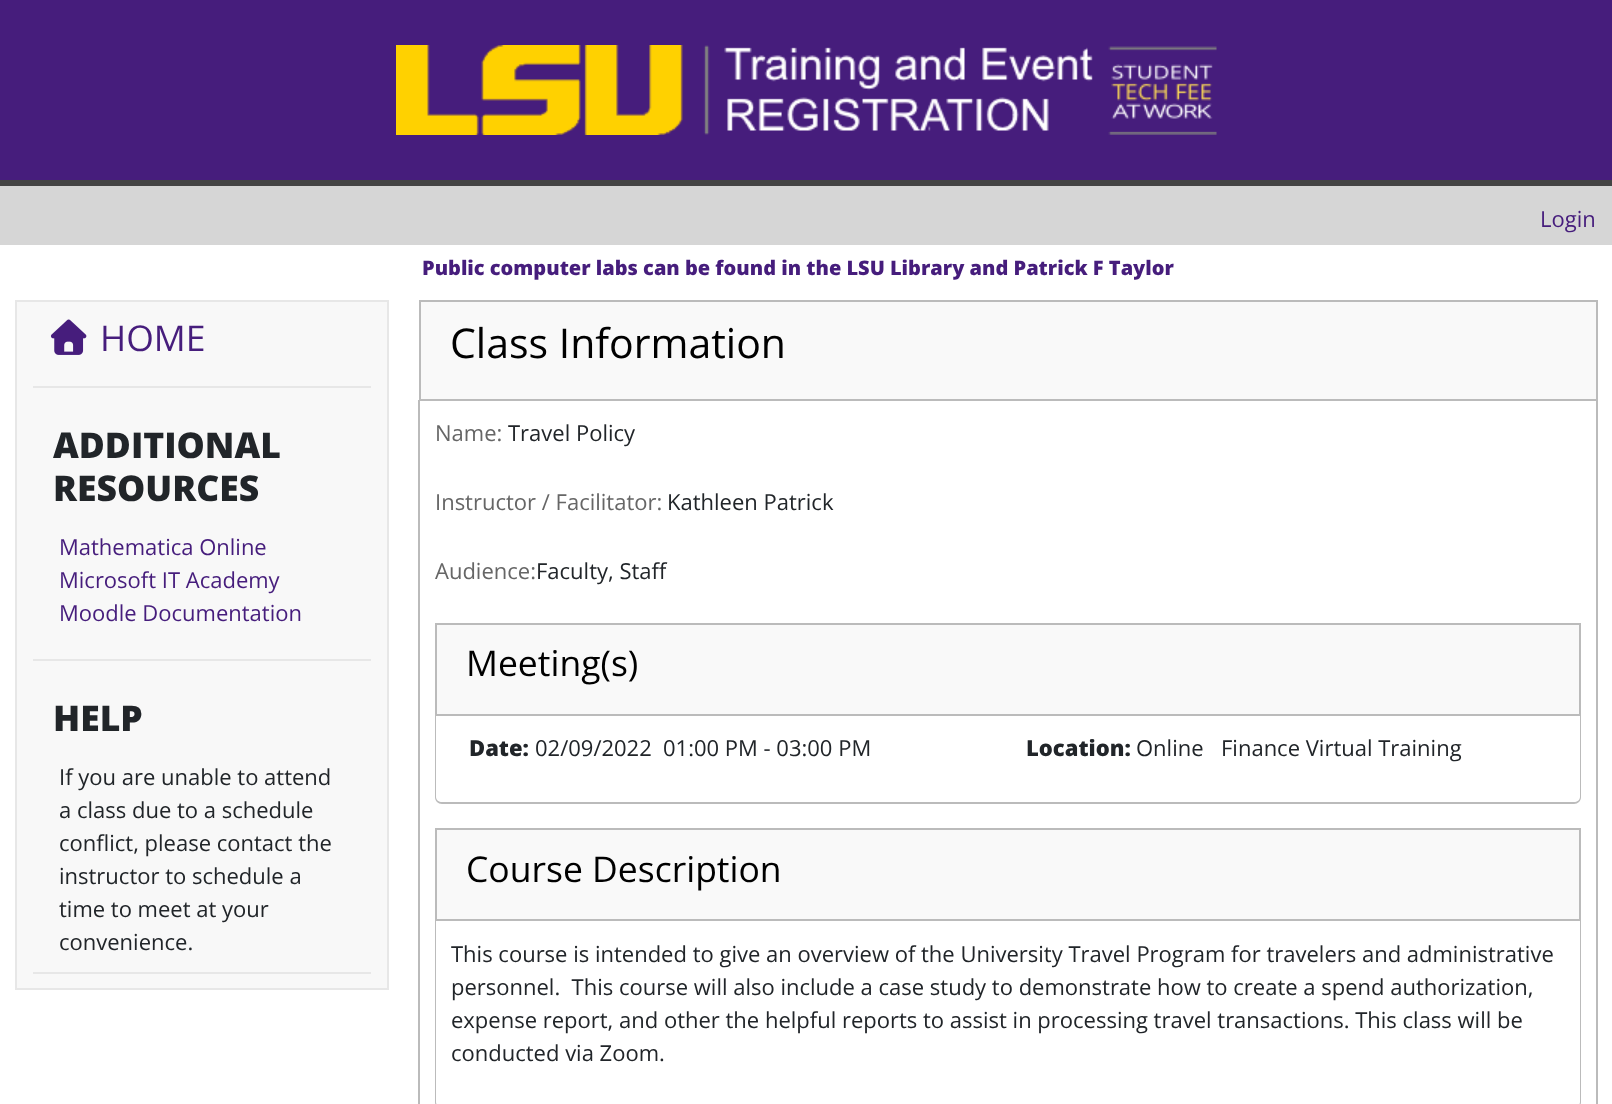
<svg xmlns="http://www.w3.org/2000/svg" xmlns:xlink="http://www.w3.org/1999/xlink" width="1612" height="1104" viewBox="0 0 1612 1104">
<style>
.cls-1{font:22px Open Sans;fill:#461d7c}
.cls-2{font:800 20px Open Sans;fill:#461d7c}
.cls-3{font:35.5px Open Sans;fill:#461d7c}
.cls-4{font:800 35.5px Open Sans;fill:#212529}
.cls-5{font:22px Open Sans;fill:#212529}
.cls-6{font:41px Open Sans;fill:#000000}
.cls-7{font:22px Open Sans;fill:#666666}
.cls-8{font:35.5px Open Sans;fill:#000000}
.cls-9{font:800 22px Open Sans;fill:#212529}
</style>
<rect width="100%" height="100%" fill="#ffffff"/>
<rect fill="#461d7c" x="0" y="0" width="1612" height="180"/>
<rect fill="#444444" x="0" y="180" width="1612" height="6"/>
<image xlink:href="image0.png" x="396" y="45" width="821" height="90"/>
<rect fill="#d6d6d6" x="0" y="186" width="1612" height="59"/>
<rect fill="#f8f8f8" stroke="#e7e7e7" stroke-width="2" x="16" y="301" width="372" height="688"/>
<rect fill="#e7e7e7" x="33" y="386" width="338" height="2"/>
<image xlink:href="image1.png" x="50" y="319" width="37" height="36"/>
<rect fill="#e7e7e7" x="33" y="659" width="338" height="2"/>
<rect fill="#e7e7e7" x="33" y="972" width="338" height="2"/>
<rect fill="#f9f9f9" stroke="#bbbbbb" stroke-width="2" x="420" y="301" width="1177" height="99"/>
<path fill="#bbbbbb" fill-rule="evenodd" d="M418 400H1598V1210C1598 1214 1595 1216 1591 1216H425C421 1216 418 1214 418 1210ZM420 400H1596V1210C1596 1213 1594 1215 1591 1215H425C422 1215 420 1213 420 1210Z"/>
<rect fill="#f9f9f9" stroke="#bbbbbb" stroke-width="2" x="436" y="624" width="1144" height="91"/>
<path fill="#bbbbbb" fill-rule="evenodd" d="M435 716H1581V797C1581 801 1578 804 1574 804H442C438 804 435 801 435 797ZM436 716H1580V797C1580 800 1577 802 1574 802H442C439 802 436 800 436 797Z"/>
<rect fill="#f9f9f9" stroke="#bbbbbb" stroke-width="2" x="436" y="829" width="1144" height="91"/>
<path fill="#bbbbbb" fill-rule="evenodd" d="M435 921H1581V1102C1581 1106 1578 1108 1574 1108H442C438 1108 435 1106 435 1102ZM436 921H1580V1102C1580 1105 1577 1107 1574 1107H442C439 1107 436 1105 436 1102Z"/>
<text class="cls-1" x="1540" y="227">Login</text>
<text class="cls-2" x="422" y="275">Public computer labs can be found in the LSU Library and Patrick F Taylor</text>
<text class="cls-3" x="100" y="351">HOME</text>
<text class="cls-4"><tspan x="53" y="458">ADDITIONAL</tspan><tspan x="53" y="501">RESOURCES</tspan></text>
<text class="cls-1"><tspan x="59" y="555">Mathematica Online</tspan><tspan x="59" y="588">Microsoft IT Academy</tspan><tspan x="59" y="621">Moodle Documentation</tspan></text>
<text class="cls-4" x="53" y="731">HELP</text>
<text class="cls-5"><tspan x="59" y="785">If you are unable to attend</tspan><tspan x="59" y="818">a class due to a schedule</tspan><tspan x="59" y="851">conflict, please contact the</tspan><tspan x="59" y="884">instructor to schedule a</tspan><tspan x="59" y="917">time to meet at your</tspan><tspan x="59" y="950">convenience.</tspan></text>
<text class="cls-6" x="450" y="358">Class Information</text>
<text class="cls-7" x="435" y="441">Name:</text>
<text class="cls-5" x="508" y="441">Travel Policy</text>
<text class="cls-7" x="435" y="510">Instructor / Facilitator:</text>
<text class="cls-5" x="667" y="510">Kathleen Patrick</text>
<text class="cls-7" x="435" y="579">Audience:</text>
<text class="cls-5" x="536" y="579">Faculty, Staff</text>
<text class="cls-8" x="466" y="676">Meeting(s)</text>
<text class="cls-9" x="469" y="756">Date:</text>
<text class="cls-5" x="535" y="756">02/09/2022</text>
<text class="cls-5" x="663" y="756">01:00 PM - 03:00 PM</text>
<text class="cls-9" x="1026" y="756">Location:</text>
<text class="cls-5" x="1136" y="756">Online</text>
<text class="cls-5" x="1221" y="756">Finance Virtual Training</text>
<text class="cls-8" x="466" y="882">Course Description</text>
<text class="cls-5" xml:space="preserve"><tspan x="451" y="962">This course is intended to give an overview of the University Travel Program for travelers and administrative</tspan><tspan x="451" y="995">personnel.  This course will also include a case study to demonstrate how to create a spend authorization,</tspan><tspan x="451" y="1028">expense report, and other the helpful reports to assist in processing travel transactions. This class will be</tspan><tspan x="451" y="1061">conducted via Zoom.</tspan></text>
</svg>
